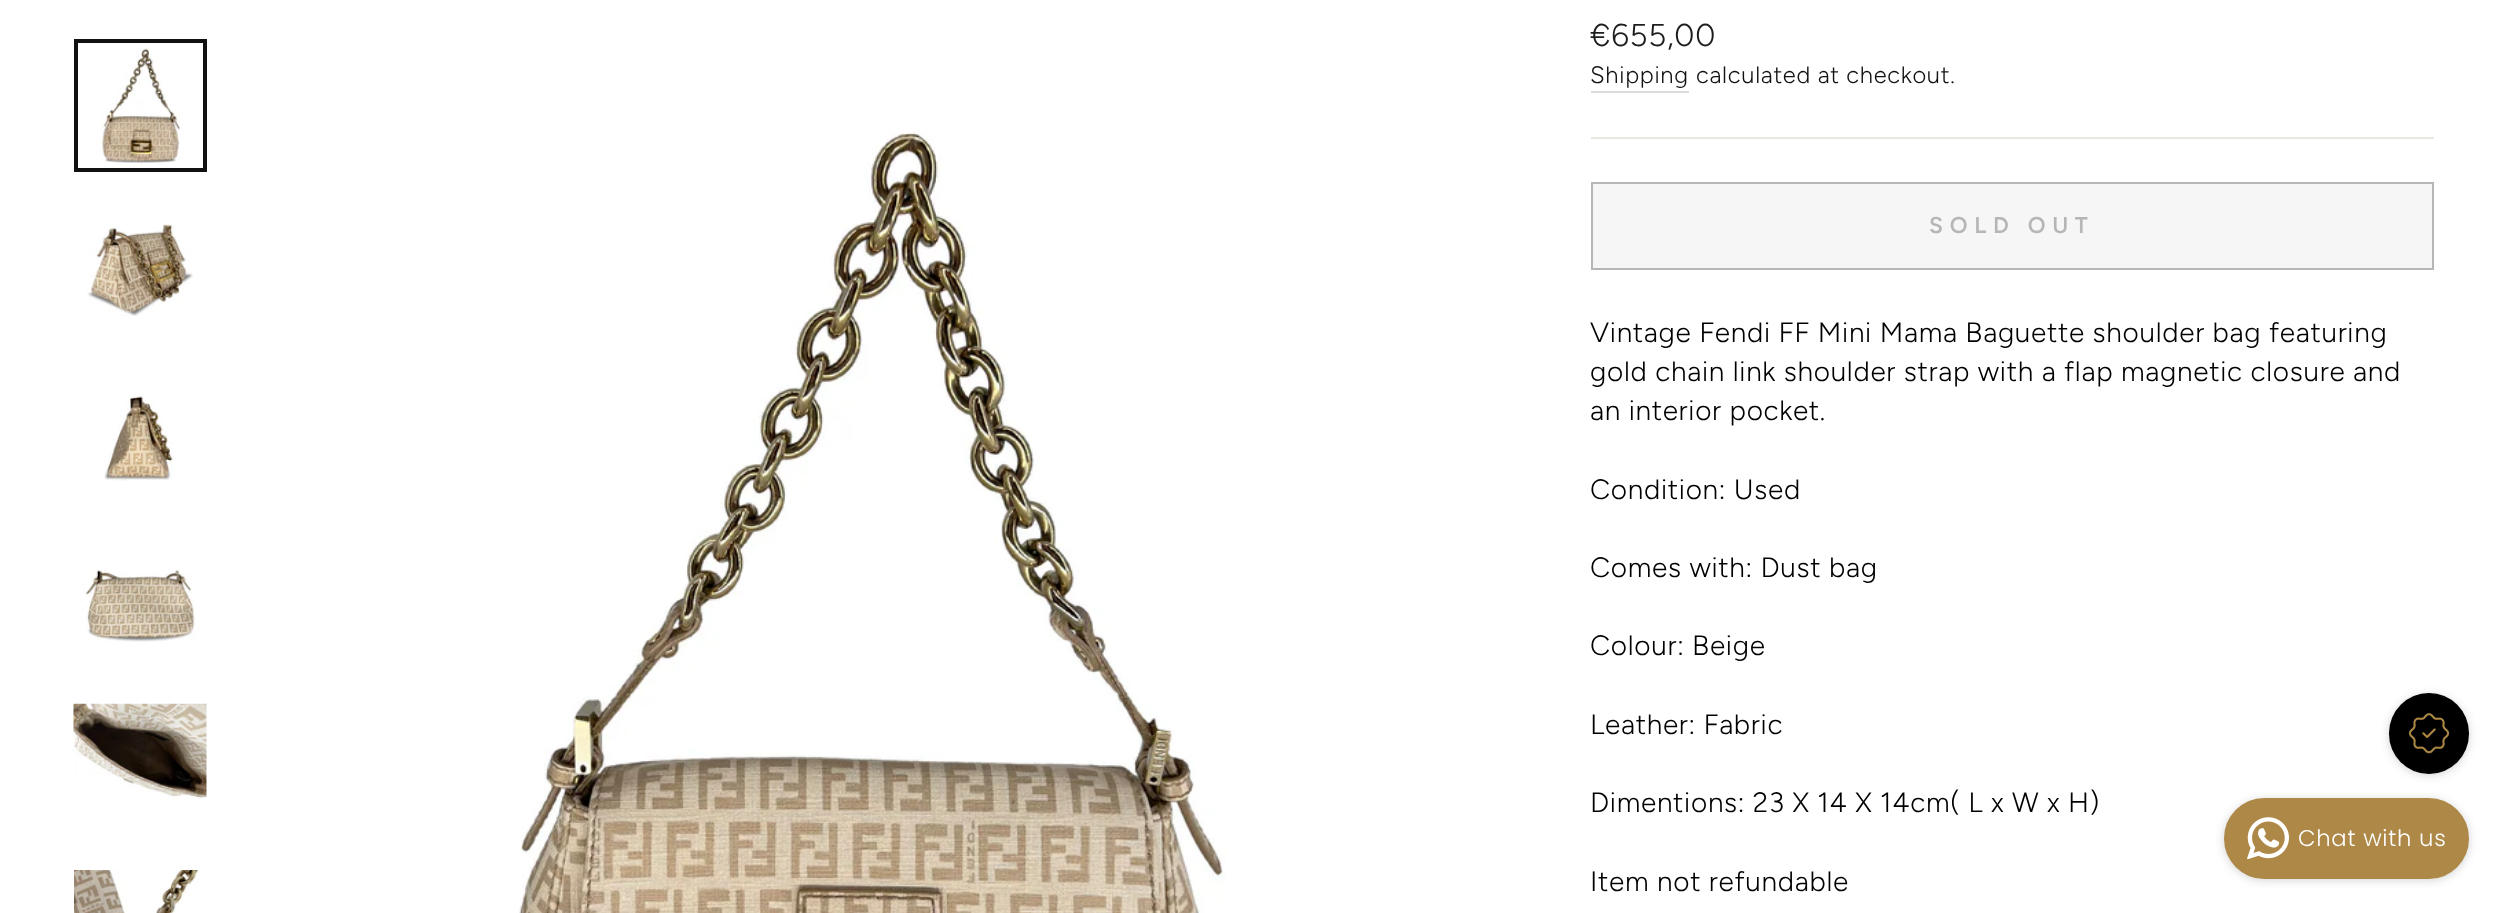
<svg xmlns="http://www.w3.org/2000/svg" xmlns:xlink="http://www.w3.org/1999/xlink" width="2504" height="913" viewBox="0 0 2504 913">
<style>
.cls-1{font:300 31.5px Figtree;letter-spacing:0.7px;fill:#1c1d1d}
.cls-2{font:300 23.75px Figtree;letter-spacing:0.7px;fill:#111111}
.cls-3{font:600 22.75px Figtree;letter-spacing:6.75px;fill:#b6b6b6}
.cls-4{font:300 28px Figtree;letter-spacing:0.7px;fill:#000000}
.cls-5{font:300 22.75px Poppins;letter-spacing:0.7px;fill:#ffffff}
</style>
<rect width="100%" height="100%" fill="#ffffff"/>
<image xlink:href="image0.png" x="100" y="48" width="80" height="115"/>
<rect fill="none" stroke="#111111" stroke-width="4" x="76" y="41" width="129" height="129"/>
<image xlink:href="image1.png" x="87" y="223" width="106" height="93"/>
<image xlink:href="image2.png" x="102" y="396" width="71" height="85"/>
<image xlink:href="image3.png" x="82" y="569" width="114" height="73"/>
<image xlink:href="image4.png" x="73" y="703" width="134" height="98"/>
<image xlink:href="image5.png" x="74" y="870" width="125" height="43"/>
<image xlink:href="image6.png" x="519" y="131" width="707" height="782"/>
<rect fill="#dbdbdb" x="1591" y="91" width="98" height="2"/>
<rect fill="#e8e8e1" x="1591" y="137" width="843" height="2"/>
<rect fill="#f6f6f6" stroke="#b6b6b6" stroke-width="2" x="1592" y="183" width="841" height="86"/>
<rect fill="#1b1b1b" fill-opacity="0.2" filter="blur(5px)" x="2389" y="695" width="80" height="80" rx="40"/>
<rect fill="#000000" x="2389" y="693" width="80" height="81" rx="40"/>
<image xlink:href="image7.png" x="2408" y="713" width="42" height="41"/>
<rect fill="#1b1b1b" fill-opacity="0.2" filter="blur(5px)" x="2224" y="800" width="245" height="80" rx="40"/>
<rect fill="#ad8847" stroke="#ad8847" stroke-width="2" x="2225" y="799" width="243" height="79" rx="39.5"/>
<image xlink:href="image8.png" x="2247" y="817" width="42" height="42"/>
<text class="cls-1" x="1590" y="46">€655,00</text>
<text class="cls-2" x="1590" y="83">Shipping</text>
<text class="cls-2" x="1696" y="83">calculated at checkout.</text>
<text class="cls-3" x="1929" y="233">SOLD OUT</text>
<text class="cls-4"><tspan x="1590" y="342">Vintage Fendi FF Mini Mama Baguette shoulder bag featuring</tspan><tspan x="1590" y="381">gold chain link shoulder strap with a flap magnetic closure and</tspan><tspan x="1590" y="420">an interior pocket.</tspan></text>
<text class="cls-4" x="1590" y="499">Condition: Used</text>
<text class="cls-4" x="1590" y="577">Comes with: Dust bag</text>
<text class="cls-4" x="1590" y="655">Colour: Beige</text>
<text class="cls-4" x="1590" y="734">Leather: Fabric</text>
<text class="cls-4" x="1590" y="812">Dimentions: 23 X 14 X 14cm( L x W x H)</text>
<text class="cls-4" x="1590" y="891">Item not refundable</text>
<text class="cls-5" x="2298" y="846">Chat with us</text>
</svg>
